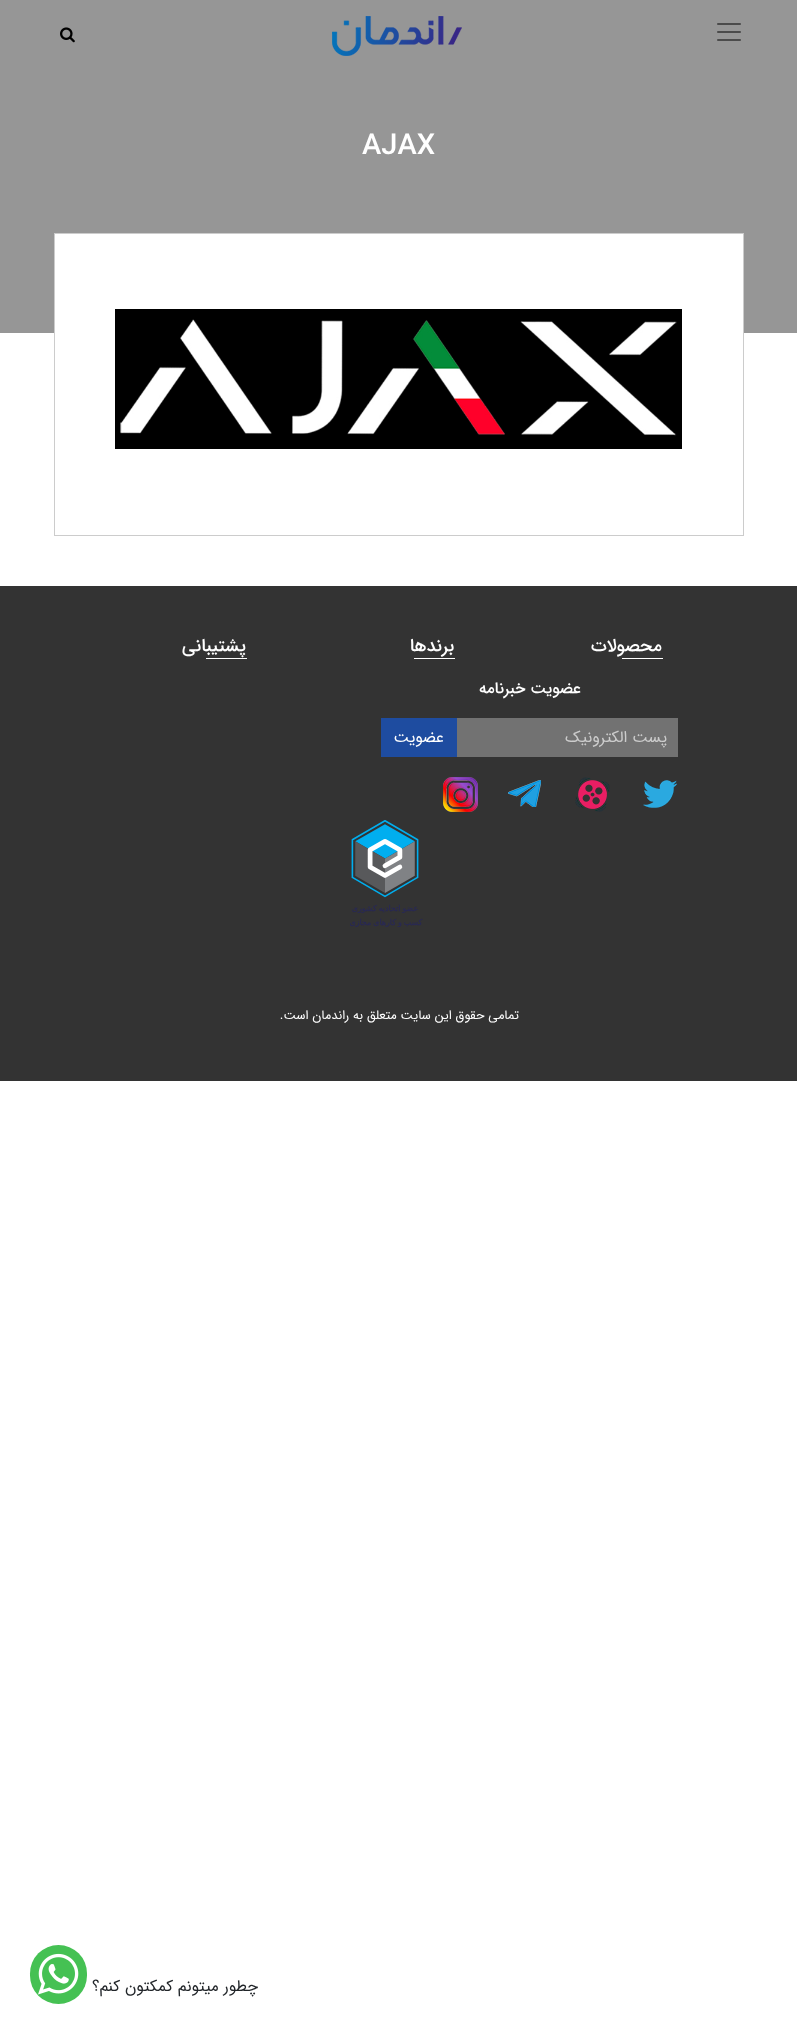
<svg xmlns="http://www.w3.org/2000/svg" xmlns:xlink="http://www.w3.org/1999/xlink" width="797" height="2034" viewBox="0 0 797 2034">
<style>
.cls-1{font:500 29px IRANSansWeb;fill:#ffffff}
.cls-2{font:500 18px IRANSansWeb;direction:rtl;fill:#ffffff}
.cls-3{font:500 16px IRANSansWeb;direction:rtl;fill:#ffffff}
.cls-4{font:16px IRANSansWeb;direction:rtl;fill:#cccccc}
.cls-5{font:16px IRANSansWeb;direction:rtl;fill:#ffffff}
.cls-6{font:12.75px IRANSansWeb;direction:rtl;fill:#ffffff}
.cls-7{font:16px IRANSansWeb;direction:rtl;fill:#212529}
</style>
<rect width="100%" height="100%" fill="#ffffff"/>
<rect fill="#969696" x="0" y="0" width="797" height="333"/>
<image xlink:href="image0.png" x="717" y="23" width="24" height="18"/>
<image xlink:href="image1.png" x="332" y="16" width="130" height="40"/>
<image xlink:href="image2.png" x="60" y="27" width="15" height="16"/>
<rect fill="#ffffff" x="55" y="234" width="688" height="99"/>
<rect fill="none" stroke="#cccccc" x="54.5" y="233.5" width="689" height="302"/>
<image xlink:href="image3.png" x="115" y="309" width="567" height="140"/>
<rect fill="#333333" x="0" y="586" width="797" height="495"/>
<rect fill="#ffffff" x="622" y="658" width="41" height="1"/>
<rect fill="#ffffff" x="414" y="658" width="41" height="1"/>
<rect fill="#ffffff" x="206" y="658" width="41" height="1"/>
<rect fill="#727272" x="457" y="718" width="221" height="39"/>
<rect fill="#1e4ca0" x="381" y="718" width="76" height="39"/>
<image xlink:href="image4.png" x="643" y="780" width="34" height="28"/>
<image xlink:href="image5.png" x="575" y="777" width="35" height="35"/>
<image xlink:href="image6.png" x="508" y="780" width="33" height="27"/>
<image xlink:href="image7.png" x="443" y="777" width="35" height="35"/>
<image xlink:href="image8.png" x="350" y="820" width="73" height="107"/>
<rect fill="#45c153" x="30" y="1945" width="57" height="59" rx="28.5"/>
<image xlink:href="image9.png" x="38" y="1953" width="41" height="42"/>
<text class="cls-1" x="362" y="154">AJAX</text>
<text class="cls-2" x="662" y="651">محصولات</text>
<text class="cls-2" x="454" y="651">برندها</text>
<text class="cls-2" x="246" y="651">پشتیبانی</text>
<text class="cls-3" x="581" y="693">عضویت خبرنامه</text>
<text class="cls-4" x="667" y="742">پست الکترونیک</text>
<text class="cls-5" x="444" y="742">عضویت</text>
<text class="cls-6" x="519" y="1019">تمامی حقوق این سایت متعلق به راندمان است.</text>
<text class="cls-7" x="258" y="1991">چطور میتونم کمکتون کنم؟</text>
</svg>
